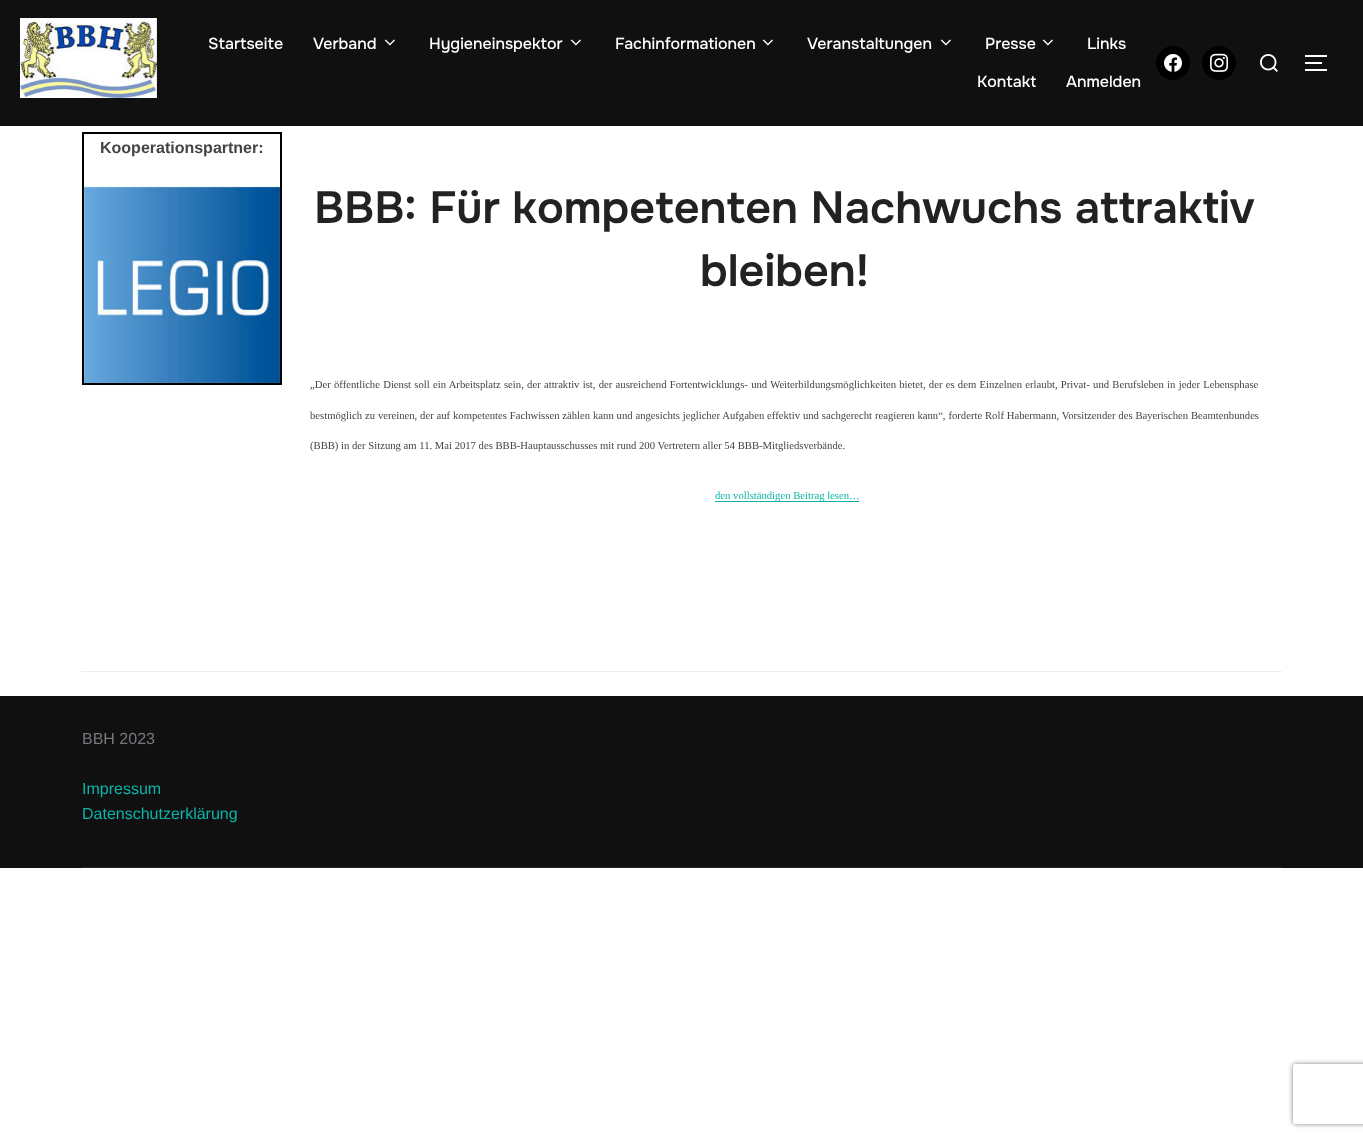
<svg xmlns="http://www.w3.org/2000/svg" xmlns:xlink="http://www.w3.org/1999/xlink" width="1363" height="1138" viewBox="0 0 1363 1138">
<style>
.cls-1{font:500 16px Onest;fill:#ffffff}
.cls-2{font:bold 16px Liberation Sans;fill:#444444}
.cls-3{font:600 45px Onest;fill:#222222}
.cls-4{font:10.67px Liberation Serif;fill:#444444}
.cls-5{font:10.67px Liberation Serif;fill:#0bb4aa}
.cls-6{font:16px Liberation Sans;fill:#78787f}
.cls-7{font:16px Liberation Sans;fill:#0bb4aa}
</style>
<defs>
<clipPath id="clip1"><path d="M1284 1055H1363V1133H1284ZM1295 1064H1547C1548 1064 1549 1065 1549 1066V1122C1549 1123 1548 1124 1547 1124H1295C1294 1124 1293 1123 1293 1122V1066C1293 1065 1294 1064 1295 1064Z" clip-rule="evenodd"/></clipPath>
</defs>
<rect width="100%" height="100%" fill="#ffffff"/>
<rect fill="#101010" x="0" y="0" width="1363" height="126"/>
<image xlink:href="image0.png" x="20" y="18" width="137" height="80"/>
<image xlink:href="image1.png" x="384" y="39" width="11" height="7"/>
<image xlink:href="image1.png" x="570" y="39" width="11" height="7"/>
<image xlink:href="image1.png" x="762" y="39" width="11" height="7"/>
<image xlink:href="image1.png" x="940" y="39" width="11" height="7"/>
<image xlink:href="image1.png" x="1042" y="39" width="11" height="7"/>
<circle fill="#000000" cx="1173" cy="63" r="17"/>
<image xlink:href="image2.png" x="1164" y="54" width="18" height="18"/>
<circle fill="#000000" cx="1219" cy="63" r="17"/>
<image xlink:href="image3.png" x="1210" y="53" width="18" height="19"/>
<image xlink:href="image4.png" x="1260" y="54" width="18" height="18"/>
<rect fill="#ffffff" x="1305" y="55" width="22" height="2"/>
<rect fill="#ffffff" x="1305" y="62" width="17" height="2"/>
<rect fill="#ffffff" x="1305" y="69" width="22" height="2"/>
<rect fill="#eeeeee" x="81" y="671" width="1201" height="1"/>
<rect fill="none" stroke="#000000" stroke-width="2" x="83" y="133" width="198" height="251"/>
<image xlink:href="image5.png" x="83" y="186" width="197" height="197"/>
<rect fill="#0bb4aa" x="715" y="501" width="144" height="1"/>
<rect fill="#101010" x="0" y="696" width="1363" height="172"/>
<rect fill="#282828" x="82" y="867" width="1200" height="1"/>
<g clip-path="url(#clip1)">
<rect fill="#808080" filter="blur(2.5px)" x="1293" y="1064" width="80" height="60" rx="2"/>
</g>
<text class="cls-1" x="208" y="49">Startseite</text>
<text class="cls-1" x="313" y="49">Verband</text>
<text class="cls-1" x="429" y="49">Hygieneinspektor</text>
<text class="cls-1" x="615" y="49">Fachinformationen</text>
<text class="cls-1" x="807" y="49">Veranstaltungen</text>
<text class="cls-1" x="985" y="49">Presse</text>
<text class="cls-1" x="1087" y="49">Links</text>
<text class="cls-1" x="977" y="87">Kontakt</text>
<text class="cls-1" x="1066" y="87">Anmelden</text>
<text class="cls-2" x="100" y="153">Kooperationspartner:</text>
<text class="cls-3" x="314" y="223">BBB: Für kompetenten Nachwuchs attraktiv</text>
<text class="cls-3" x="700" y="286">bleiben!</text>
<text class="cls-4" x="310" y="388" word-spacing="0.6">„Der öffentliche Dienst soll ein Arbeitsplatz sein, der attraktiv ist, der ausreichend Fortentwicklungs- und Weiterbildungsmöglichkeiten bietet, der es dem Einzelnen erlaubt, Privat- und Berufsleben in jeder Lebensphase</text>
<text class="cls-4" x="310" y="419" word-spacing="0.2">bestmöglich zu vereinen, der auf kompetentes Fachwissen zählen kann und angesichts jeglicher Aufgaben effektiv und sachgerecht reagieren kann“, forderte Rolf Habermann, Vorsitzender des Bayerischen Beamtenbundes</text>
<text class="cls-4" x="310" y="449">(BBB) in der Sitzung am 11. Mai 2017 des BBB-Hauptausschusses mit rund 200 Vertretern aller 54 BBB-Mitgliedsverbände.</text>
<text class="cls-5" x="715" y="499">den vollständigen Beitrag lesen…</text>
<text class="cls-6" x="82" y="744">BBH 2023</text>
<text class="cls-7"><tspan x="82" y="794">Impressum</tspan><tspan x="82" y="819">Datenschutzerklärung</tspan></text>
</svg>
